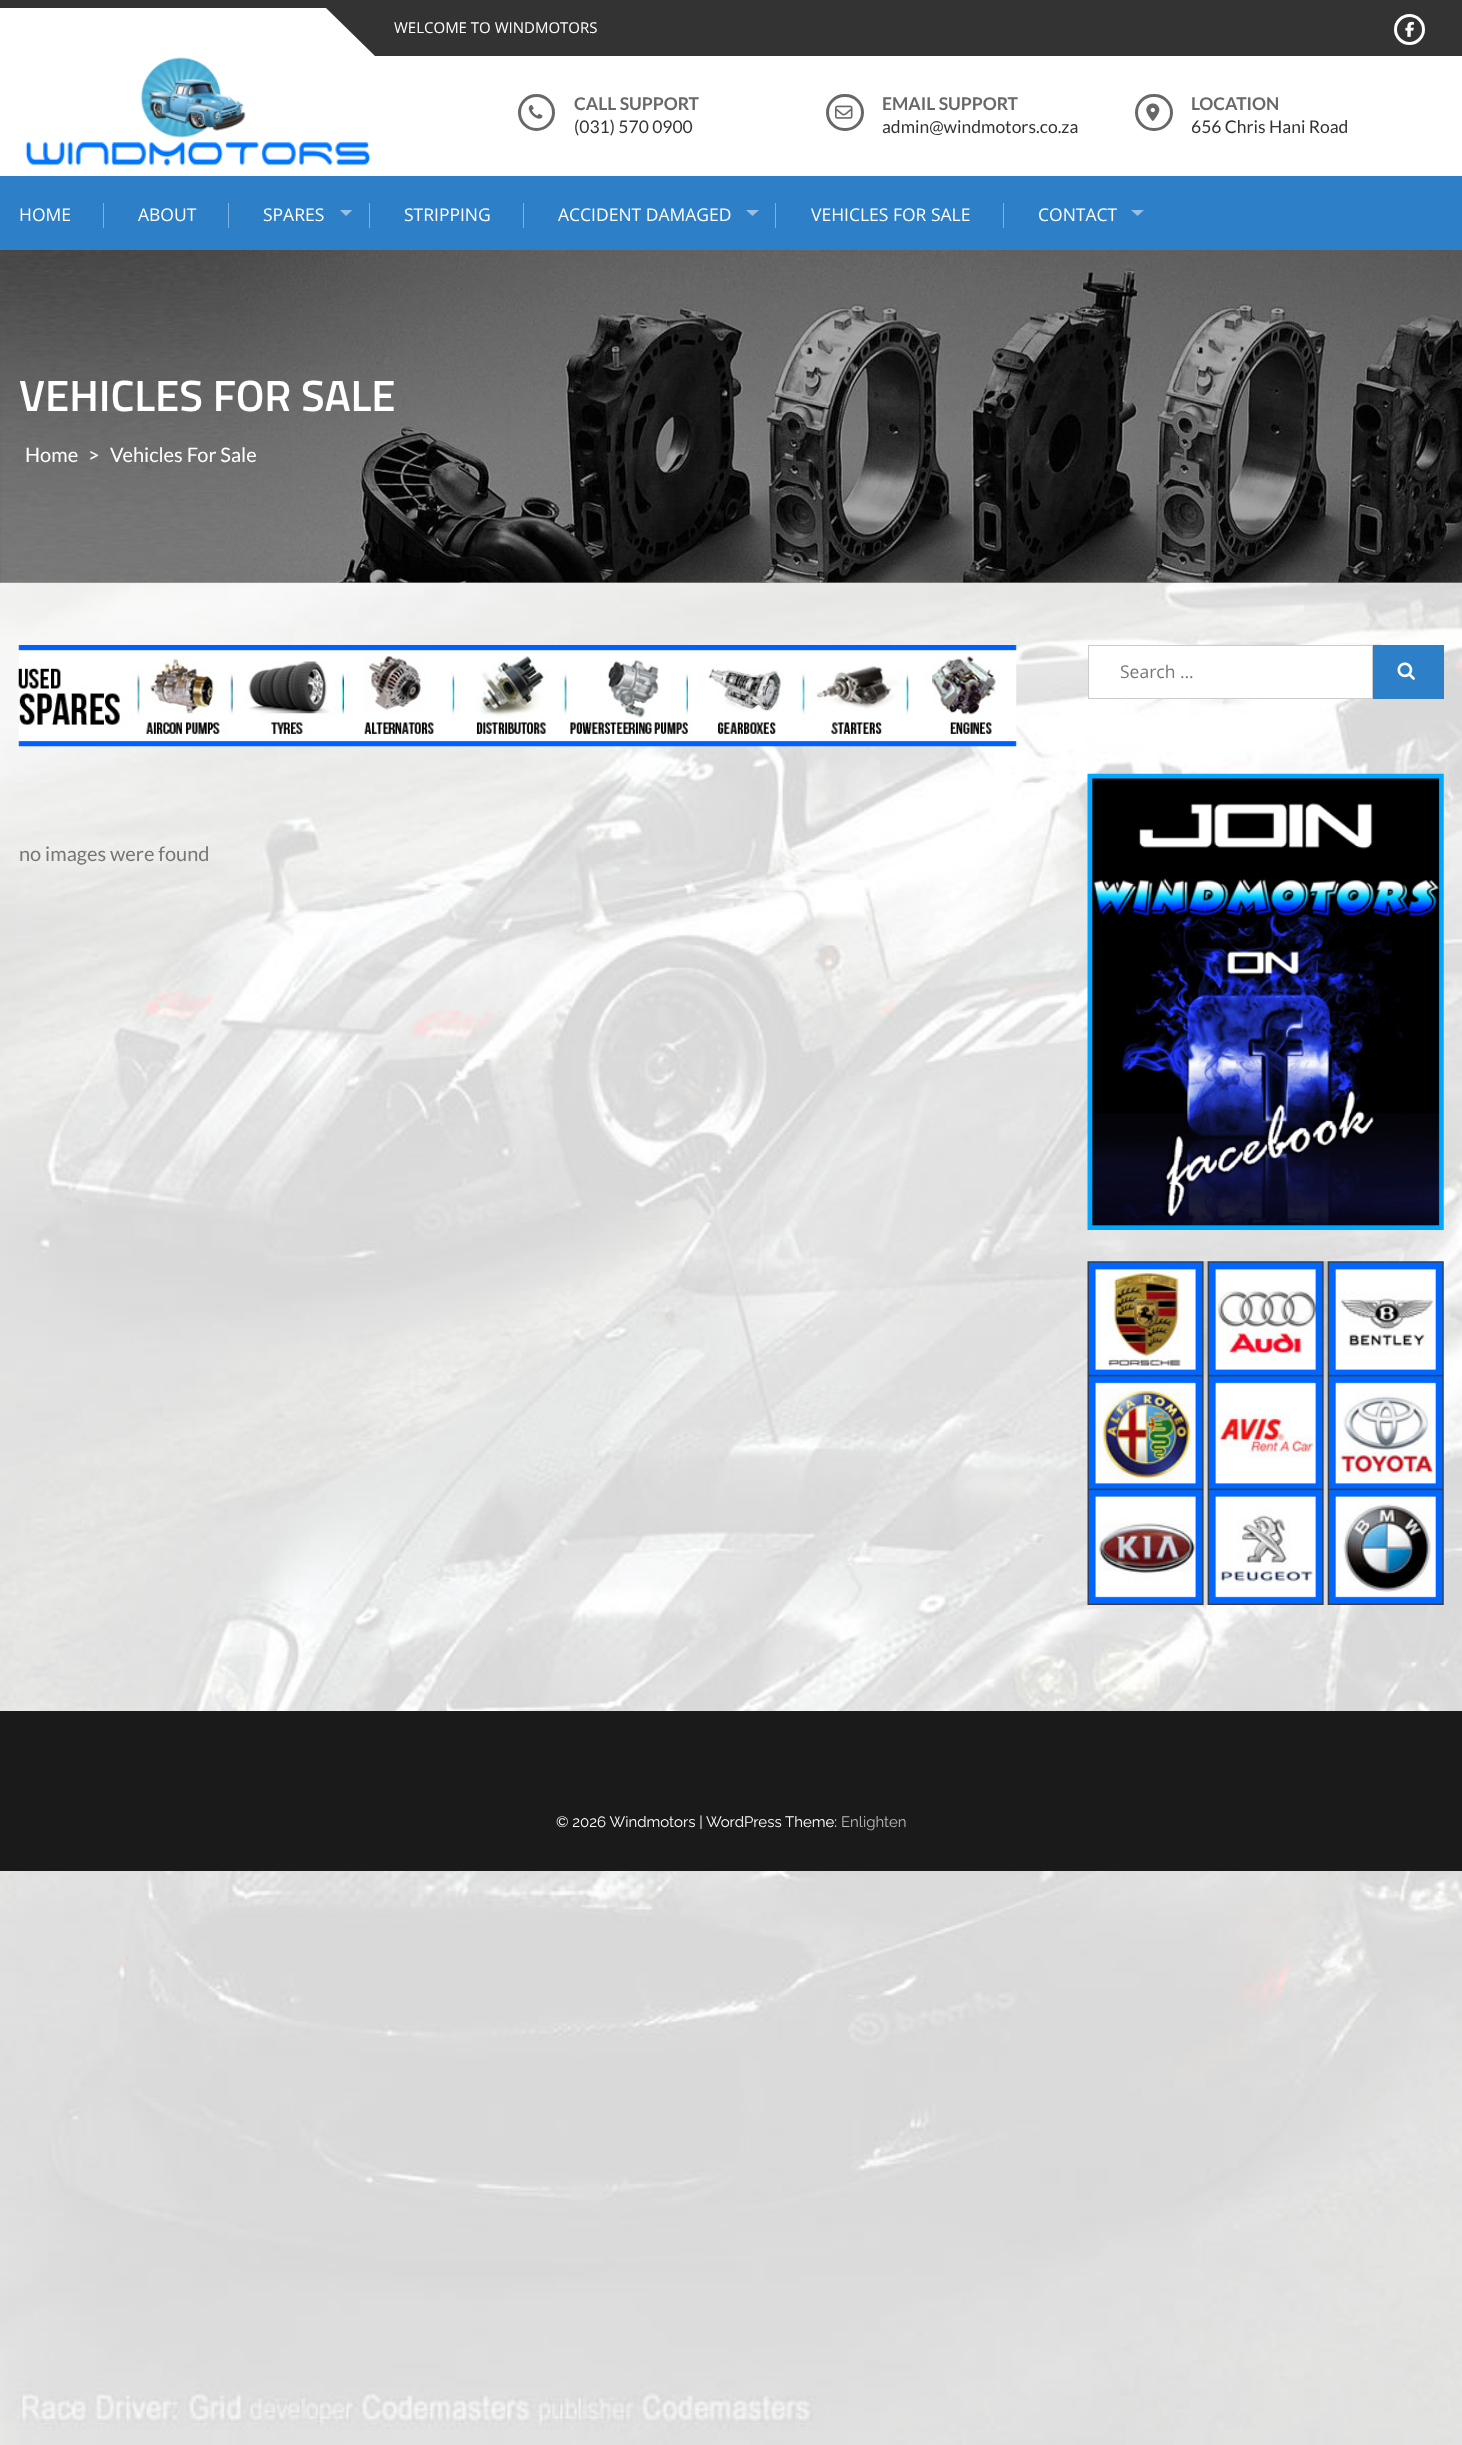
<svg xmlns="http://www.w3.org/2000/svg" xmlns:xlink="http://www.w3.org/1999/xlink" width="1462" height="2445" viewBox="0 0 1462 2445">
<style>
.cls-1{font:15px Open Sans;fill:#ffffff}
.cls-2{font:bold 17.5px Lato;fill:#686868}
.cls-3{font:17.5px Lato;fill:#333333}
.cls-4{font:17.5px Open Sans;fill:#ffffff}
.cls-5{font:600 43.75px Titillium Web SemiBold;fill:#ffffff}
.cls-6{font:20px Lato;fill:#ffffff}
.cls-7{font:17.5px Open Sans;fill:#777777}
.cls-8{font:20px Lato;fill:#777777}
.cls-9{font:15px Raleway;fill:#ffffff}
.cls-10{font:15px Raleway;fill:#bababa}
</style>
<rect width="100%" height="100%" fill="#ffffff"/>
<image xlink:href="image0.png" x="0" y="582" width="1462" height="1863"/>
<rect fill="#333333" x="0" y="0" width="1462" height="8"/>
<rect fill="#333333" x="375" y="8" width="1087" height="48"/>
<path fill="#333333" d="M326 8H375V56Z"/>
<circle fill="none" stroke="#ffffff" stroke-width="3" cx="1409.5" cy="29.5" r="14"/>
<image xlink:href="image1.png" x="1405" y="21" width="9" height="16"/>
<image xlink:href="image2.png" x="25" y="57" width="346" height="109"/>
<circle fill="none" stroke="#686868" stroke-width="3" cx="536.5" cy="112.5" r="17"/>
<image xlink:href="image3.png" x="528" y="105" width="15" height="14"/>
<rect fill="none" stroke="#686868" stroke-width="3" x="827.5" y="95.5" width="35" height="34" rx="17"/>
<image xlink:href="image4.png" x="835" y="105" width="18" height="14"/>
<rect fill="none" stroke="#686868" stroke-width="3" x="1136.5" y="95.5" width="35" height="34" rx="17"/>
<image xlink:href="image5.png" x="1146" y="103" width="14" height="18"/>
<rect fill="#2d7fc7" x="0" y="176" width="1462" height="74"/>
<rect fill="#81b2dd" x="103" y="203" width="1" height="25"/>
<rect fill="#81b2dd" x="228" y="203" width="1" height="25"/>
<rect fill="#81b2dd" x="369" y="203" width="1" height="25"/>
<path fill="#96bfe3" d="M340 210H352.5L346 216Z"/>
<rect fill="#81b2dd" x="523" y="203" width="1" height="25"/>
<rect fill="#81b2dd" x="775" y="203" width="1" height="25"/>
<path fill="#96bfe3" d="M746 210H759L752.5 216Z"/>
<rect fill="#81b2dd" x="1003" y="203" width="1" height="25"/>
<path fill="#96bfe3" d="M1131 210H1144L1137.5 216Z"/>
<image xlink:href="image6.png" x="0" y="250" width="1462" height="333"/>
<rect fill="#000000" fill-opacity="0.3" x="0" y="250" width="1462" height="333"/>
<rect fill="#2d7fc7" x="1373" y="645" width="71" height="54"/>
<rect fill="#ffffff" stroke="#cccccc" x="1088.5" y="645.5" width="284" height="53"/>
<image xlink:href="image7.png" x="1397" y="662" width="18" height="18"/>
<image xlink:href="image8.png" x="1087" y="773" width="357" height="457"/>
<image xlink:href="image9.png" x="1087" y="1261" width="357" height="344"/>
<image xlink:href="image10.png" x="18" y="645" width="999" height="102"/>
<rect fill="#1a1a1a" x="0" y="1711" width="1462" height="160"/>
<text class="cls-1" x="394" y="33">WELCOME TO WINDMOTORS</text>
<text class="cls-2" x="574" y="110">CALL SUPPORT</text>
<text class="cls-3" x="574" y="133">(031) 570 0900</text>
<text class="cls-2" x="882" y="110">EMAIL SUPPORT</text>
<text class="cls-3" x="882" y="133">admin@windmotors.co.za</text>
<text class="cls-2" x="1191" y="110">LOCATION</text>
<text class="cls-3" x="1191" y="133">656 Chris Hani Road</text>
<text class="cls-4" x="19" y="221">HOME</text>
<text class="cls-4" x="138" y="221">ABOUT</text>
<text class="cls-4" x="263" y="221">SPARES</text>
<text class="cls-4" x="404" y="221">STRIPPING</text>
<text class="cls-4" x="558" y="221">ACCIDENT DAMAGED</text>
<text class="cls-4" x="811" y="221">VEHICLES FOR SALE</text>
<text class="cls-4" x="1038" y="221">CONTACT</text>
<text class="cls-5" x="19" y="411">VEHICLES FOR SALE</text>
<text class="cls-6" x="25" y="462">Home</text>
<text class="cls-6" x="88" y="462">&gt;</text>
<text class="cls-6" x="110" y="462">Vehicles For Sale</text>
<text class="cls-7" x="1120" y="678">Search …</text>
<text class="cls-8" x="19" y="861">no images were found</text>
<text class="cls-9" x="556" y="1827">© 2026 Windmotors | WordPress Theme:</text>
<text class="cls-10" x="841" y="1827">Enlighten</text>
</svg>
